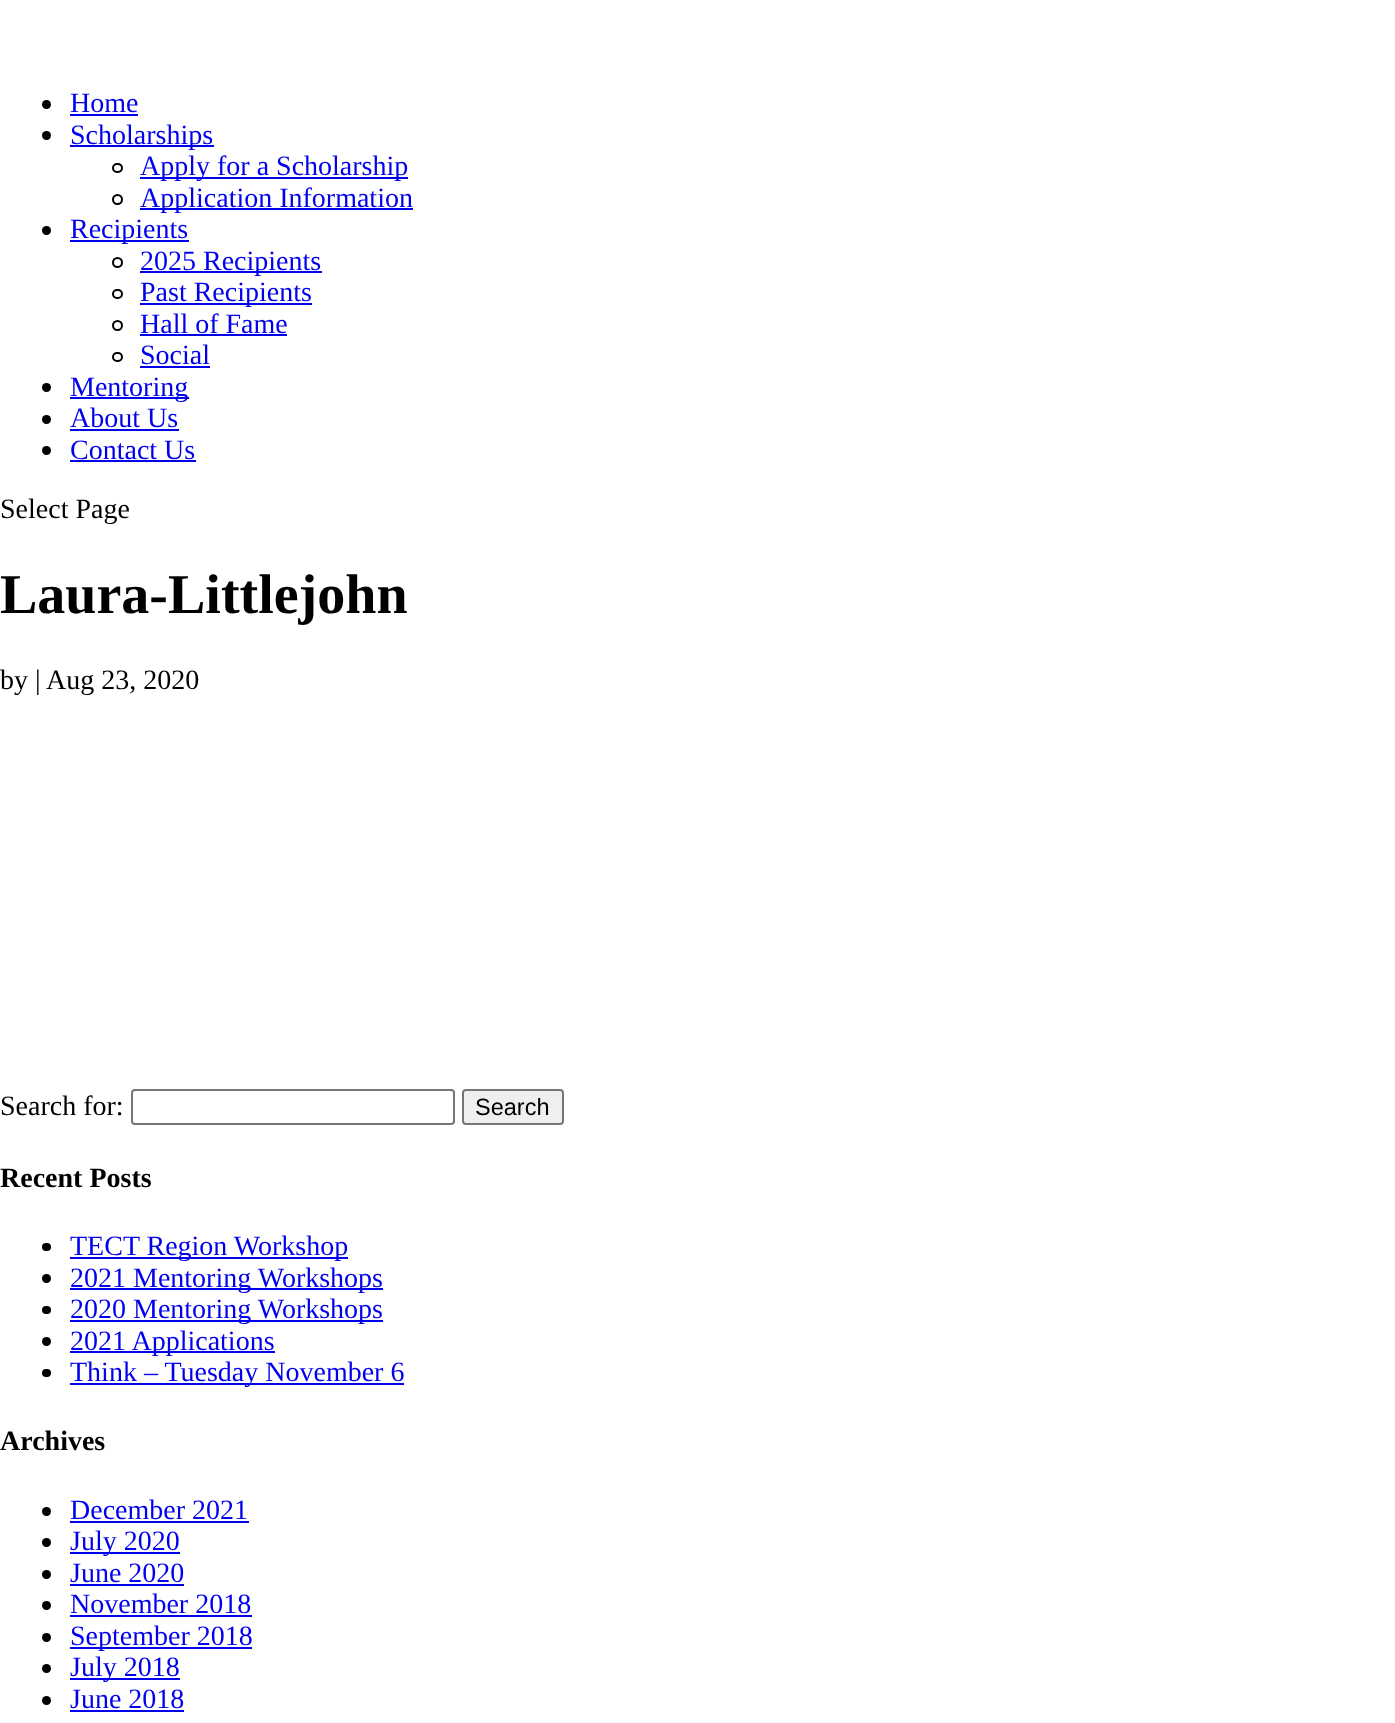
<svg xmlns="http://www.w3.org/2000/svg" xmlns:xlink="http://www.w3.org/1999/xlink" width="1395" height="1723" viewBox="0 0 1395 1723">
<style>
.cls-1{font:28px Liberation Serif;fill:#0000ee}
.cls-2{font:28px Liberation Serif;fill:#000000}
.cls-3{font:bold 56px Liberation Serif;fill:#000000}
.cls-4{font:23.5px Liberation Sans;fill:#000000}
.cls-5{font:bold 28px Liberation Serif;fill:#000000}
</style>
<rect width="100%" height="100%" fill="#ffffff"/>
<circle fill="#000000" cx="46.5" cy="104.5" r="4.5"/>
<rect fill="#0000ee" x="70" y="114" width="68" height="2"/>
<circle fill="#000000" cx="46.5" cy="135.5" r="4.5"/>
<rect fill="#0000ee" x="70" y="145" width="144" height="2"/>
<rect fill="none" stroke="#000000" stroke-width="2" x="113" y="164" width="9" height="8" rx="4"/>
<rect fill="#0000ee" x="140" y="177" width="268" height="2"/>
<circle fill="none" stroke="#000000" stroke-width="2" cx="117.5" cy="199.5" r="4.5"/>
<rect fill="#0000ee" x="140" y="208" width="273" height="2"/>
<circle fill="#000000" cx="46.5" cy="230.5" r="4.5"/>
<rect fill="#0000ee" x="70" y="240" width="119" height="2"/>
<circle fill="none" stroke="#000000" stroke-width="2" cx="117.5" cy="262.5" r="4.5"/>
<rect fill="#0000ee" x="140" y="271" width="182" height="2"/>
<rect fill="none" stroke="#000000" stroke-width="2" x="113" y="290" width="9" height="8" rx="4"/>
<rect fill="#0000ee" x="140" y="303" width="172" height="2"/>
<circle fill="none" stroke="#000000" stroke-width="2" cx="117.5" cy="325.5" r="4.5"/>
<rect fill="#0000ee" x="140" y="334" width="147" height="2"/>
<rect fill="none" stroke="#000000" stroke-width="2" x="113" y="353" width="9" height="8" rx="4"/>
<rect fill="#0000ee" x="140" y="366" width="70" height="2"/>
<circle fill="#000000" cx="46.5" cy="387.5" r="4.5"/>
<rect fill="#0000ee" x="70" y="397" width="119" height="2"/>
<circle fill="#000000" cx="46.5" cy="419.5" r="4.5"/>
<rect fill="#0000ee" x="70" y="429" width="109" height="2"/>
<circle fill="#000000" cx="46.5" cy="450.5" r="4.5"/>
<rect fill="#0000ee" x="70" y="460" width="126" height="2"/>
<rect fill="none" stroke="#767676" stroke-width="2" x="132" y="1090" width="322" height="34" rx="3"/>
<rect fill="#efefef" stroke="#767676" stroke-width="2" x="463" y="1090" width="100" height="34" rx="3"/>
<rect fill="#000000" x="42" y="1243" width="9" height="8" rx="4"/>
<rect fill="#0000ee" x="70" y="1257" width="278" height="2"/>
<circle fill="#000000" cx="46.5" cy="1278.5" r="4.5"/>
<rect fill="#0000ee" x="70" y="1288" width="313" height="2"/>
<rect fill="#000000" x="42" y="1306" width="9" height="8" rx="4"/>
<rect fill="#0000ee" x="70" y="1320" width="313" height="2"/>
<circle fill="#000000" cx="46.5" cy="1341.5" r="4.5"/>
<rect fill="#0000ee" x="70" y="1351" width="205" height="2"/>
<rect fill="#000000" x="42" y="1369" width="9" height="8" rx="4"/>
<rect fill="#0000ee" x="70" y="1383" width="334" height="2"/>
<circle fill="#000000" cx="46.5" cy="1511.5" r="4.5"/>
<rect fill="#0000ee" x="70" y="1521" width="179" height="2"/>
<circle fill="#000000" cx="46.5" cy="1542.5" r="4.5"/>
<rect fill="#0000ee" x="70" y="1552" width="110" height="2"/>
<circle fill="#000000" cx="46.5" cy="1574.5" r="4.5"/>
<rect fill="#0000ee" x="70" y="1584" width="114" height="2"/>
<circle fill="#000000" cx="46.5" cy="1605.5" r="4.5"/>
<rect fill="#0000ee" x="70" y="1615" width="182" height="2"/>
<circle fill="#000000" cx="46.5" cy="1637.5" r="4.5"/>
<rect fill="#0000ee" x="70" y="1647" width="182" height="2"/>
<circle fill="#000000" cx="46.5" cy="1668.5" r="4.5"/>
<rect fill="#0000ee" x="70" y="1678" width="110" height="2"/>
<circle fill="#000000" cx="46.5" cy="1700.5" r="4.5"/>
<rect fill="#0000ee" x="70" y="1710" width="114" height="2"/>
<text class="cls-1"><tspan x="70" y="112">Home</tspan><tspan x="70" y="144">Scholarships</tspan></text>
<text class="cls-1"><tspan x="140" y="175">Apply for a Scholarship</tspan><tspan x="140" y="207">Application Information</tspan></text>
<text class="cls-1" x="70" y="238">Recipients</text>
<text class="cls-1"><tspan x="140" y="270">2025 Recipients</tspan><tspan x="140" y="301">Past Recipients</tspan><tspan x="140" y="333">Hall of Fame</tspan><tspan x="140" y="364">Social</tspan></text>
<text class="cls-1"><tspan x="70" y="396">Mentoring</tspan><tspan x="70" y="427">About Us</tspan><tspan x="70" y="459">Contact Us</tspan></text>
<text class="cls-2" x="0" y="518">Select Page</text>
<text class="cls-3" x="0" y="613">Laura-Littlejohn</text>
<text class="cls-2" x="0" y="689">by |</text>
<text class="cls-2" x="46" y="689">Aug 23, 2020</text>
<text class="cls-2" x="0" y="1115">Search for:</text>
<text class="cls-4" x="475" y="1115">Search</text>
<text class="cls-5" x="0" y="1187">Recent Posts</text>
<text class="cls-1"><tspan x="70" y="1255">TECT Region Workshop</tspan><tspan x="70" y="1287">2021 Mentoring Workshops</tspan><tspan x="70" y="1318">2020 Mentoring Workshops</tspan><tspan x="70" y="1350">2021 Applications</tspan><tspan x="70" y="1381">Think – Tuesday November 6</tspan></text>
<text class="cls-5" x="0" y="1450">Archives</text>
<text class="cls-1"><tspan x="70" y="1519">December 2021</tspan><tspan x="70" y="1550">July 2020</tspan><tspan x="70" y="1582">June 2020</tspan><tspan x="70" y="1613">November 2018</tspan><tspan x="70" y="1645">September 2018</tspan><tspan x="70" y="1676">July 2018</tspan><tspan x="70" y="1708">June 2018</tspan></text>
</svg>
